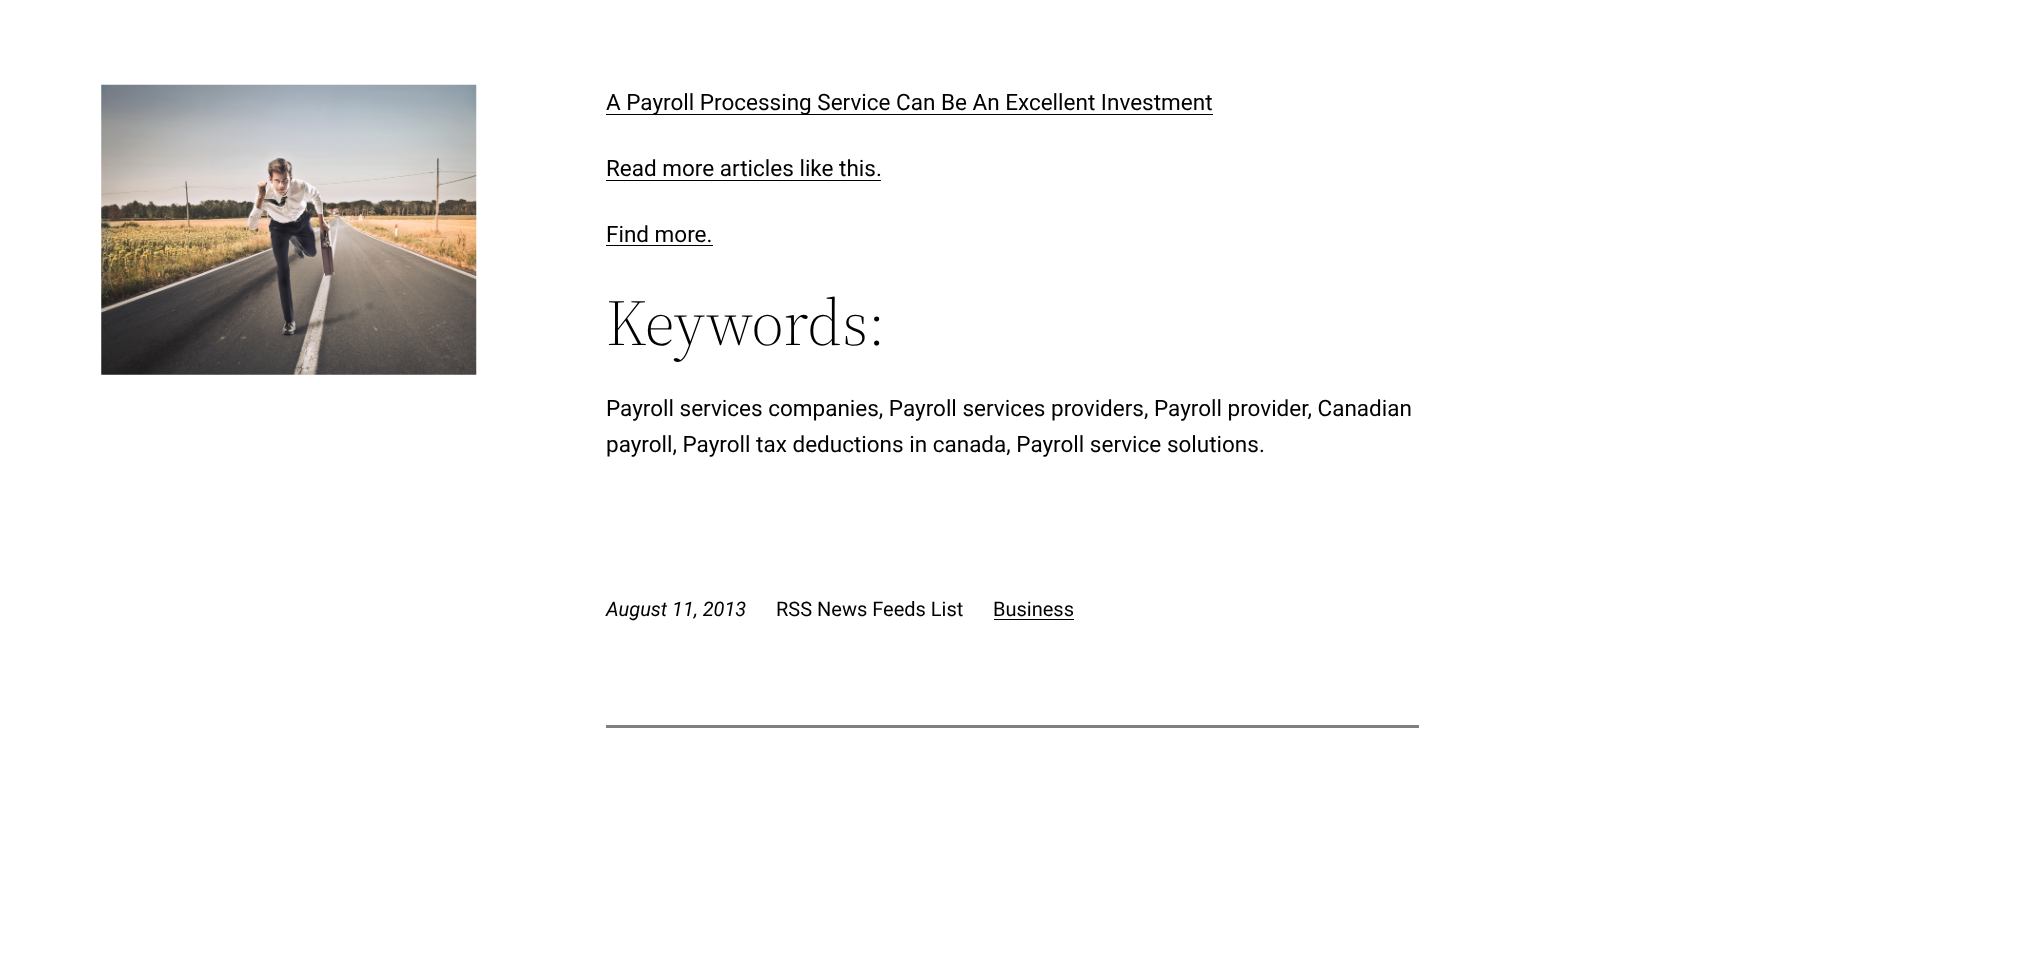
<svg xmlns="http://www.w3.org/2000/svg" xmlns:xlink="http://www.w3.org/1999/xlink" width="2023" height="956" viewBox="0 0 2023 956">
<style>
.cls-1{font:22.5px Roboto;fill:#000000}
.cls-2{font:300 65px 'Source Serif 4';fill:#000000}
.cls-3{font:italic 20px Roboto;fill:#000000}
.cls-4{font:20px Roboto;fill:#000000}
</style>
<rect width="100%" height="100%" fill="#ffffff"/>
<image xlink:href="image0.png" x="101" y="84" width="376" height="291"/>
<rect fill="#000000" x="606" y="114" width="607" height="1"/>
<rect fill="#000000" x="606" y="180" width="275" height="1"/>
<rect fill="#000000" x="606" y="245" width="107" height="1"/>
<rect fill="#000000" x="994" y="619" width="80" height="1"/>
<rect fill="#808080" x="606" y="725" width="813" height="3"/>
<text class="cls-1" x="606" y="110">A Payroll Processing Service Can Be An Excellent Investment</text>
<text class="cls-1" x="606" y="176">Read more articles like this.</text>
<text class="cls-1" x="606" y="242">Find more.</text>
<text class="cls-2" x="606" y="345">Keywords:</text>
<text class="cls-1"><tspan x="606" y="416">Payroll services companies, Payroll services providers, Payroll provider, Canadian</tspan><tspan x="606" y="452">payroll, Payroll tax deductions in canada, Payroll service solutions.</tspan></text>
<text class="cls-3" x="606" y="616">August 11, 2013</text>
<text class="cls-4" x="776" y="616">RSS News Feeds List</text>
<text class="cls-4" x="993" y="616">Business</text>
</svg>
